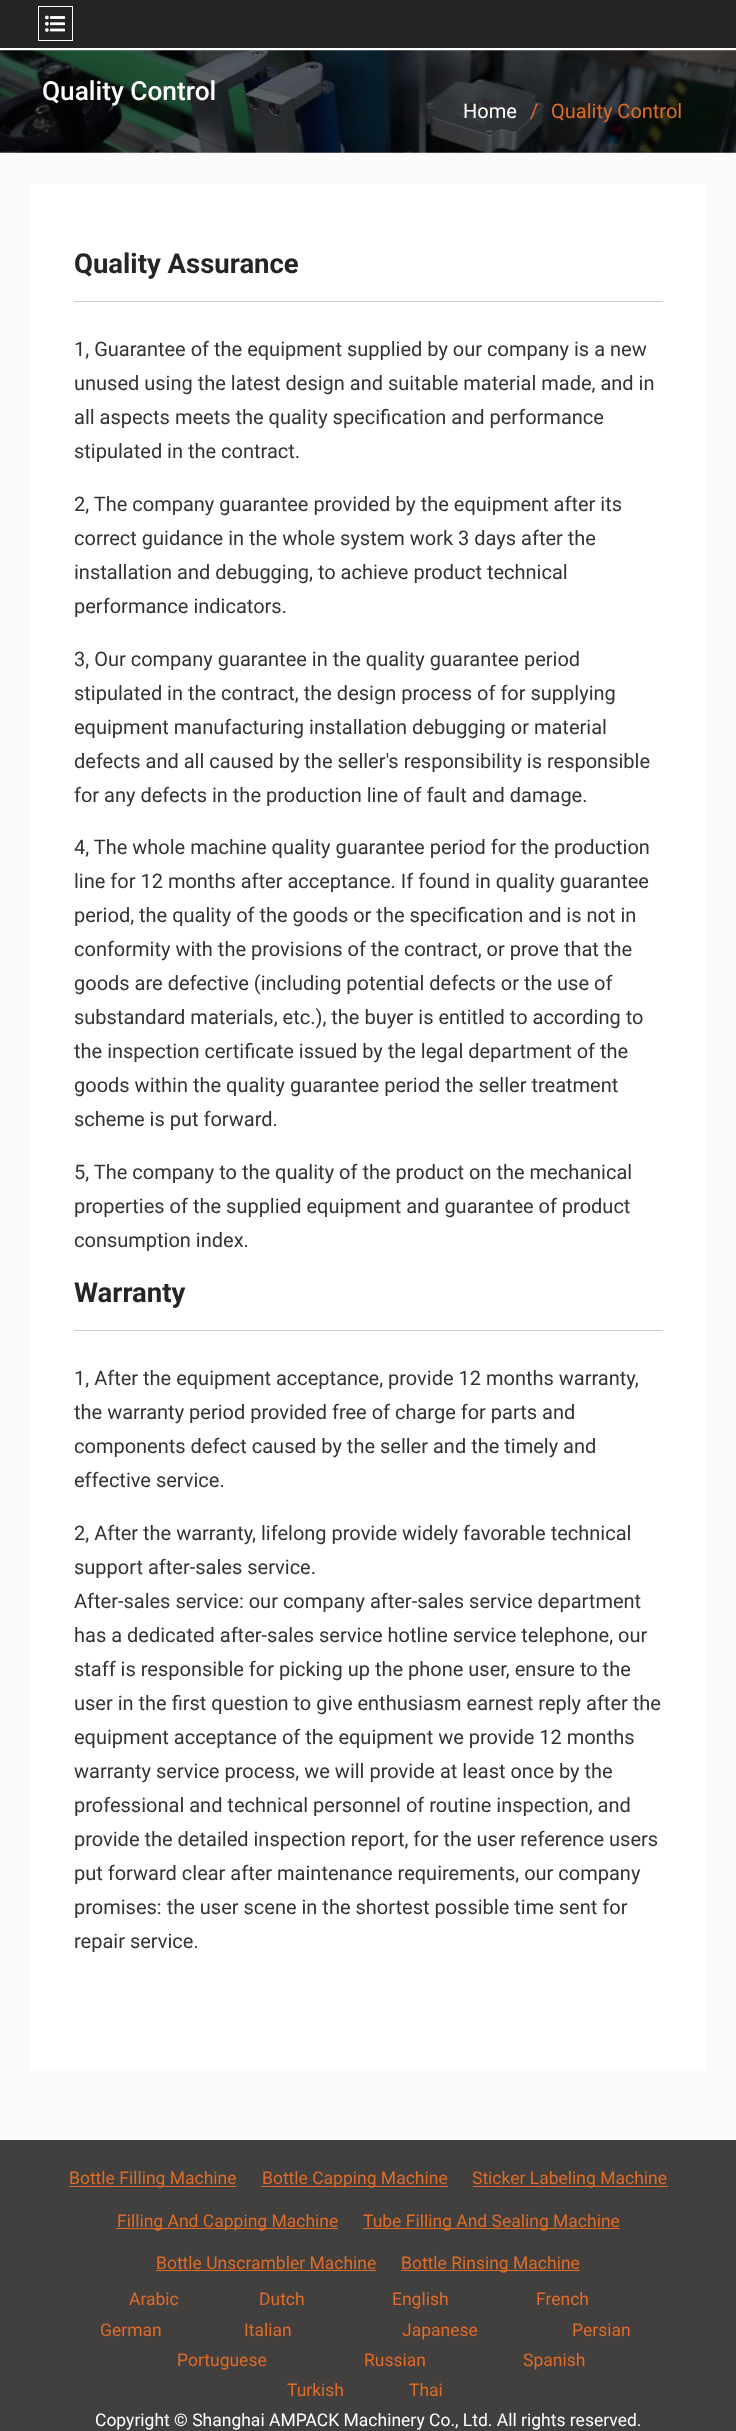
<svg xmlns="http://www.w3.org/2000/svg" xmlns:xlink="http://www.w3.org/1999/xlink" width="736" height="2431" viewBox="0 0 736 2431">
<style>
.cls-1{font:500 26.25px Roboto;fill:#ffffff}
.cls-2{font:20px Roboto;fill:#ffffff}
.cls-3{font:20px Roboto;fill:#e06c27}
.cls-4{font:bold 27.5px Roboto;fill:#252525}
.cls-5{font:20px Roboto;fill:#333333}
.cls-6{font:17.5px Roboto;fill:#e06c27}
.cls-7{font:17.5px Roboto;fill:#ffffff}
</style>
<rect width="100%" height="100%" fill="#fafafa"/>
<rect fill="#242424" x="0" y="0" width="736" height="48"/>
<rect fill="none" stroke="#fffffe" x="38.5" y="6.5" width="34" height="34"/>
<image xlink:href="image0.png" x="45" y="15" width="20" height="17"/>
<rect fill="#ffffff" x="0" y="48" width="736" height="2"/>
<image xlink:href="image1.png" x="0" y="50" width="736" height="103"/>
<rect fill="#ffffff" x="30" y="184" width="676" height="1887"/>
<rect fill="#cccccc" x="74" y="301" width="589" height="1"/>
<rect fill="#cccccc" x="74" y="1330" width="589" height="1"/>
<rect fill="#423f3f" x="0" y="2140" width="736" height="291"/>
<rect fill="#e06c27" x="69" y="2186" width="167" height="1"/>
<rect fill="#e06c27" x="261" y="2186" width="187" height="1"/>
<rect fill="#e06c27" x="473" y="2186" width="195" height="1"/>
<rect fill="#e06c27" x="116" y="2228" width="222" height="1"/>
<rect fill="#e06c27" x="363" y="2228" width="257" height="1"/>
<rect fill="#e06c27" x="156" y="2270" width="220" height="1"/>
<rect fill="#e06c27" x="401" y="2270" width="179" height="1"/>
<text class="cls-1" x="42" y="100">Quality Control</text>
<text class="cls-2" x="463" y="118">Home</text>
<text class="cls-3" x="530" y="118">/</text>
<text class="cls-3" x="551" y="118">Quality Control</text>
<text class="cls-4" x="74" y="273">Quality Assurance</text>
<text class="cls-5"><tspan x="74" y="356">1, Guarantee of the equipment supplied by our company is a new</tspan><tspan x="74" y="390">unused using the latest design and suitable material made, and in</tspan><tspan x="74" y="424">all aspects meets the quality specification and performance</tspan><tspan x="74" y="458">stipulated in the contract.</tspan></text>
<text class="cls-5"><tspan x="74" y="511">2, The company guarantee provided by the equipment after its</tspan><tspan x="74" y="545">correct guidance in the whole system work 3 days after the</tspan><tspan x="74" y="579">installation and debugging, to achieve product technical</tspan><tspan x="74" y="613">performance indicators.</tspan></text>
<text class="cls-5"><tspan x="74" y="666">3, Our company guarantee in the quality guarantee period</tspan><tspan x="74" y="700">stipulated in the contract, the design process of for supplying</tspan><tspan x="74" y="734">equipment manufacturing installation debugging or material</tspan><tspan x="74" y="768">defects and all caused by the seller's responsibility is responsible</tspan><tspan x="74" y="802">for any defects in the production line of fault and damage.</tspan></text>
<text class="cls-5"><tspan x="74" y="854">4, The whole machine quality guarantee period for the production</tspan><tspan x="74" y="888">line for 12 months after acceptance. If found in quality guarantee</tspan><tspan x="74" y="922">period, the quality of the goods or the specification and is not in</tspan><tspan x="74" y="956">conformity with the provisions of the contract, or prove that the</tspan><tspan x="74" y="990">goods are defective (including potential defects or the use of</tspan><tspan x="74" y="1024">substandard materials, etc.), the buyer is entitled to according to</tspan><tspan x="74" y="1058">the inspection certificate issued by the legal department of the</tspan><tspan x="74" y="1092">goods within the quality guarantee period the seller treatment</tspan><tspan x="74" y="1126">scheme is put forward.</tspan></text>
<text class="cls-5"><tspan x="74" y="1179">5, The company to the quality of the product on the mechanical</tspan><tspan x="74" y="1213">properties of the supplied equipment and guarantee of product</tspan><tspan x="74" y="1247">consumption index.</tspan></text>
<text class="cls-4" x="74" y="1302">Warranty</text>
<text class="cls-5"><tspan x="74" y="1385">1, After the equipment acceptance, provide 12 months warranty,</tspan><tspan x="74" y="1419">the warranty period provided free of charge for parts and</tspan><tspan x="74" y="1453">components defect caused by the seller and the timely and</tspan><tspan x="74" y="1487">effective service.</tspan></text>
<text class="cls-5"><tspan x="74" y="1540">2, After the warranty, lifelong provide widely favorable technical</tspan><tspan x="74" y="1574">support after-sales service.</tspan><tspan x="74" y="1608">After-sales service: our company after-sales service department</tspan><tspan x="74" y="1642">has a dedicated after-sales service hotline service telephone, our</tspan><tspan x="74" y="1676">staff is responsible for picking up the phone user, ensure to the</tspan><tspan x="74" y="1710">user in the first question to give enthusiasm earnest reply after the</tspan><tspan x="74" y="1744">equipment acceptance of the equipment we provide 12 months</tspan><tspan x="74" y="1778">warranty service process, we will provide at least once by the</tspan><tspan x="74" y="1812">professional and technical personnel of routine inspection, and</tspan><tspan x="74" y="1846">provide the detailed inspection report, for the user reference users</tspan><tspan x="74" y="1880">put forward clear after maintenance requirements, our company</tspan><tspan x="74" y="1914">promises: the user scene in the shortest possible time sent for</tspan><tspan x="74" y="1948">repair service.</tspan></text>
<text class="cls-6" x="69" y="2184">Bottle Filling Machine</text>
<text class="cls-6" x="262" y="2184">Bottle Capping Machine</text>
<text class="cls-6" x="472" y="2184">Sticker Labeling Machine</text>
<text class="cls-6" x="117" y="2227">Filling And Capping Machine</text>
<text class="cls-6" x="363" y="2227">Tube Filling And Sealing Machine</text>
<text class="cls-6" x="156" y="2269">Bottle Unscrambler Machine</text>
<text class="cls-6" x="401" y="2269">Bottle Rinsing Machine</text>
<text class="cls-6" x="129" y="2305">Arabic</text>
<text class="cls-6" x="259" y="2305">Dutch</text>
<text class="cls-6" x="392" y="2305">English</text>
<text class="cls-6" x="536" y="2305">French</text>
<text class="cls-6" x="100" y="2336">German</text>
<text class="cls-6" x="244" y="2336">Italian</text>
<text class="cls-6" x="402" y="2336">Japanese</text>
<text class="cls-6" x="572" y="2336">Persian</text>
<text class="cls-6" x="177" y="2366">Portuguese</text>
<text class="cls-6" x="364" y="2366">Russian</text>
<text class="cls-6" x="523" y="2366">Spanish</text>
<text class="cls-6" x="287" y="2396">Turkish</text>
<text class="cls-6" x="409" y="2396">Thai</text>
<text class="cls-7" x="95" y="2426">Copyright © Shanghai AMPACK Machinery Co., Ltd. All rights reserved.</text>
</svg>
